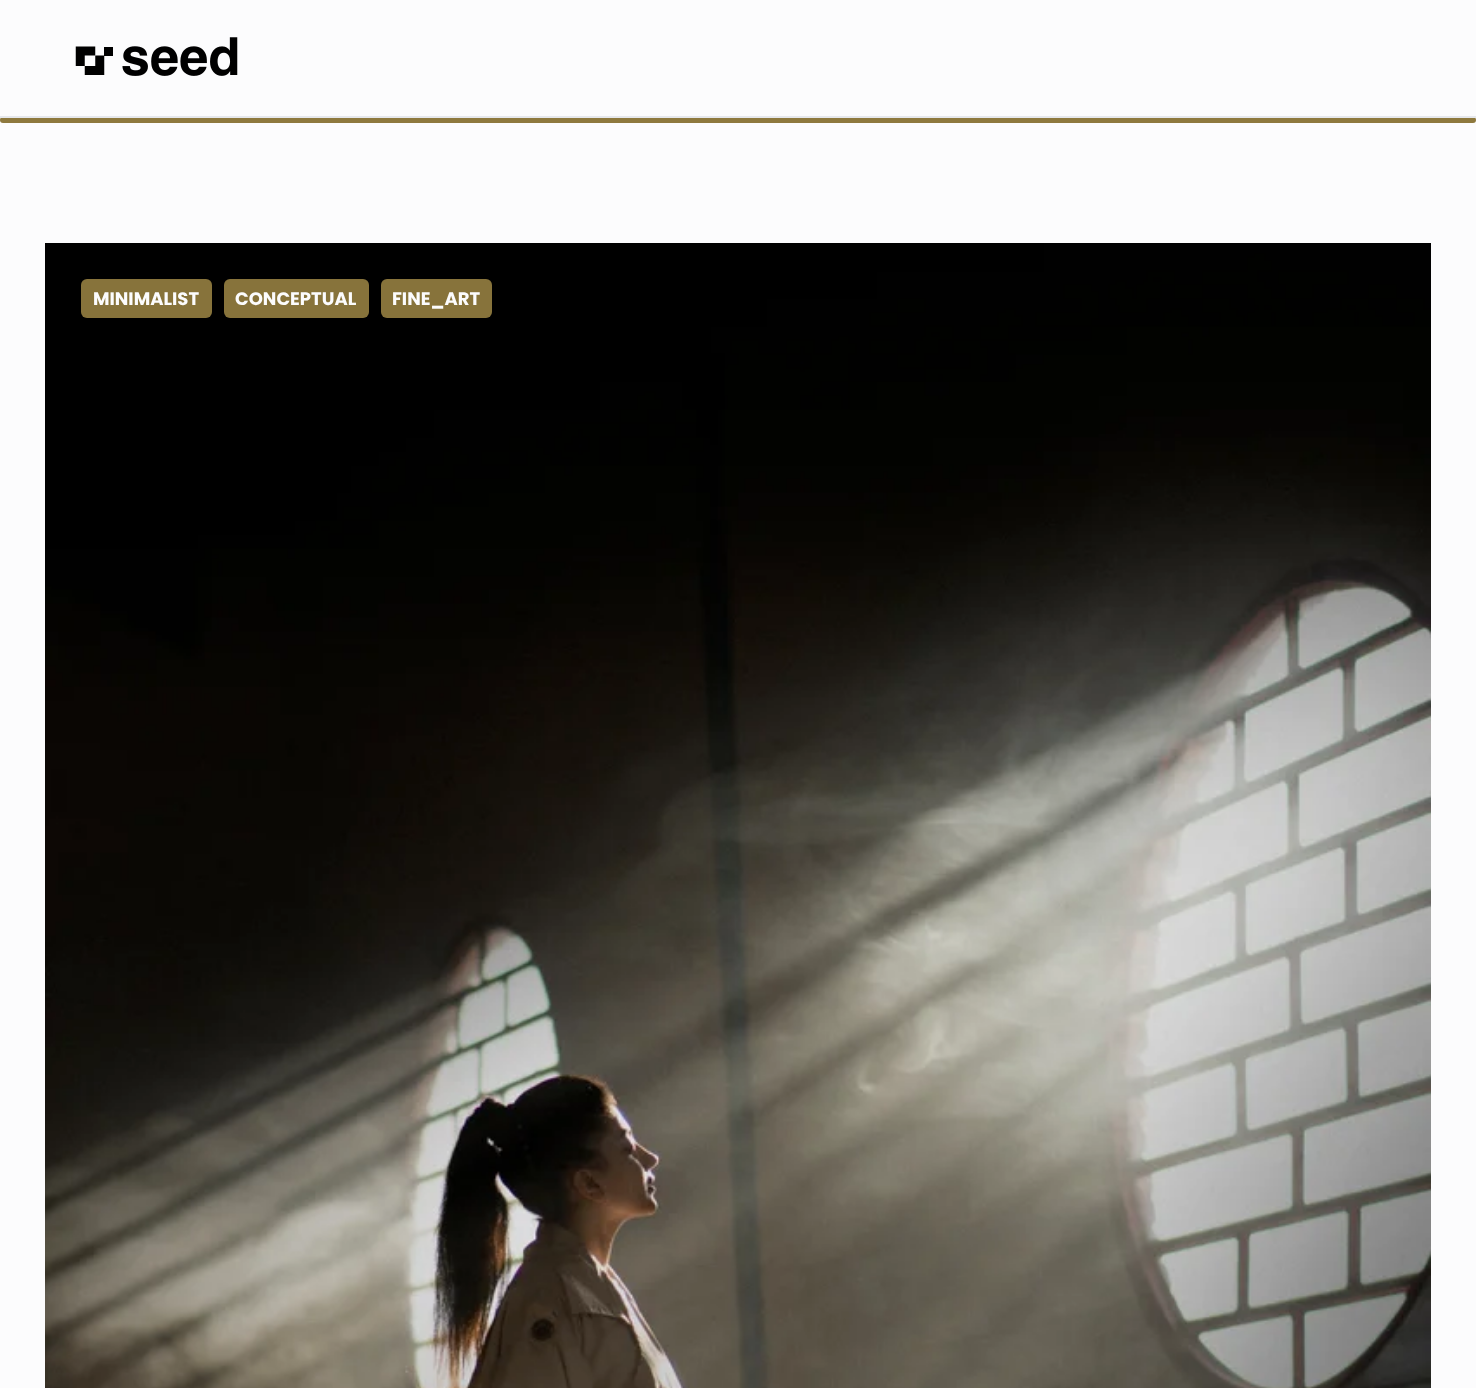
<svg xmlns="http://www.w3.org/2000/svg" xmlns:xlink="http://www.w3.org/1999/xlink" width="1476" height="1388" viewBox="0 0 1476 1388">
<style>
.cls-1{font:bold 18px Poppins;fill:#fcfcfd}
</style>
<rect width="100%" height="100%" fill="#fcfcfd"/>
<rect fill="#8e793e" x="0" y="117" width="1476" height="6" rx="3"/>
<rect fill="#e6e8ec" x="0" y="116" width="1476" height="2"/>
<image xlink:href="image0.png" x="75" y="37" width="163" height="39"/>
<image xlink:href="image1.png" x="45" y="243" width="1386" height="1145"/>
<rect fill="#87733b" x="81" y="279" width="131" height="39" rx="6"/>
<rect fill="#87733b" x="224" y="279" width="145" height="39" rx="6"/>
<rect fill="#87733b" x="381" y="279" width="111" height="39" rx="6"/>
<text class="cls-1" x="93" y="305">MINIMALIST</text>
<text class="cls-1" x="235" y="305">CONCEPTUAL</text>
<text class="cls-1" x="392" y="305">FINE_ART</text>
</svg>
